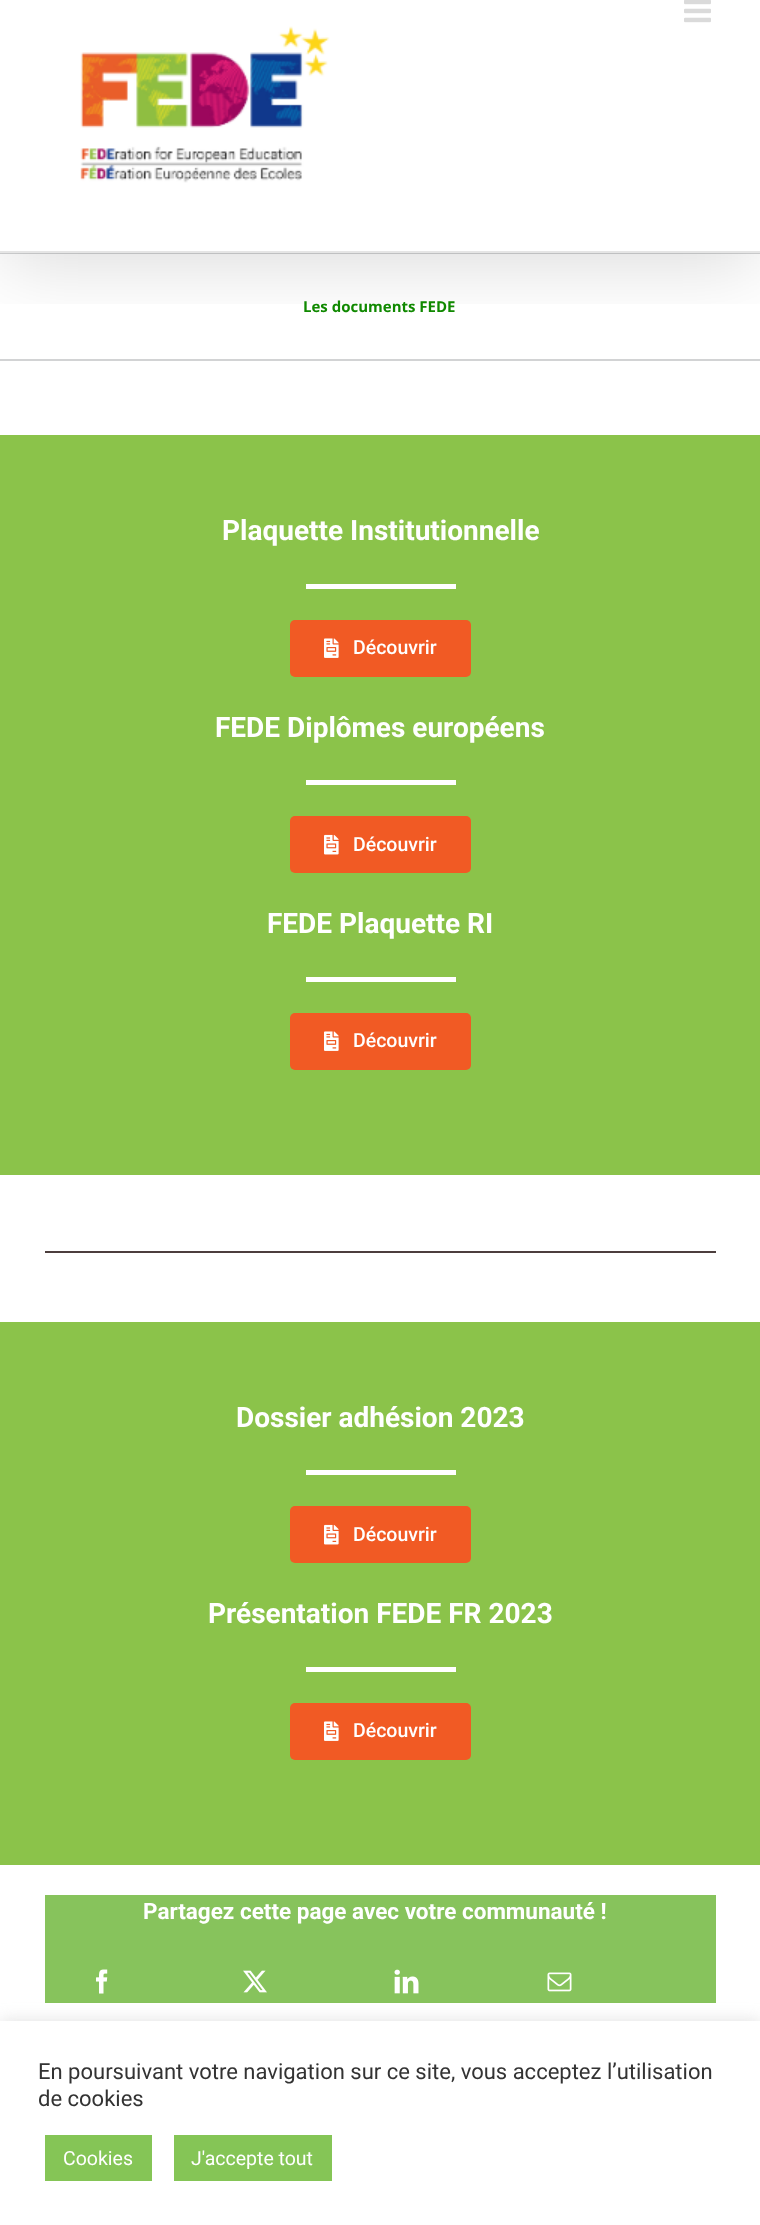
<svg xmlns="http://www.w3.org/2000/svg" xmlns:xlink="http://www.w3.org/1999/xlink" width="760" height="2225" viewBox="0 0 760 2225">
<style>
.cls-1{font:bold 15px Open Sans;fill:#108900}
.cls-2{font:bold 28px Roboto;fill:#ffffff}
.cls-3{font:500 19.5px Roboto;fill:#ffffff}
.cls-4{font:bold 22.5px Roboto;fill:#ffffff}
.cls-5{font:22px Roboto;fill:#333333}
.cls-6{font:19.5px Roboto;fill:#ffffff}
</style>
<defs>
<clipPath id="clip1"><rect x="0" y="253" width="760" height="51"/></clipPath>
</defs>
<rect width="100%" height="100%" fill="#ffffff"/>
<rect fill="#d2d3d4" x="0" y="253" width="760" height="1"/>
<rect fill="#d2d3d4" x="0" y="359" width="760" height="2"/>
<g clip-path="url(#clip1)">
<rect fill="#000000" fill-opacity="0.14" filter="blur(37.5px)" x="3" y="-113" width="755" height="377"/>
</g>
<rect fill="#e5e5e5" x="0" y="251" width="760" height="2"/>
<image xlink:href="image0.png" x="684" y="0" width="27" height="23"/>
<image xlink:href="image1.png" x="80" y="26" width="250" height="157"/>
<rect fill="#8bc34a" x="0" y="435" width="760" height="740"/>
<rect fill="#ffffff" x="306" y="584" width="150" height="5"/>
<rect fill="#f15a24" x="290" y="620" width="181" height="57" rx="5"/>
<image xlink:href="image2.png" x="324" y="638" width="15" height="20"/>
<rect fill="#ffffff" x="306" y="780" width="150" height="5"/>
<rect fill="#f15a24" x="290" y="816" width="181" height="57" rx="5"/>
<image xlink:href="image3.png" x="324" y="834" width="15" height="21"/>
<rect fill="#ffffff" x="306" y="977" width="150" height="5"/>
<rect fill="#f15a24" x="290" y="1013" width="181" height="57" rx="5"/>
<image xlink:href="image2.png" x="324" y="1031" width="15" height="20"/>
<rect fill="#4c3e3d" x="45" y="1251" width="671" height="2"/>
<rect fill="#8bc34a" x="0" y="1322" width="760" height="543"/>
<rect fill="#ffffff" x="306" y="1470" width="150" height="5"/>
<rect fill="#f15a24" x="290" y="1506" width="181" height="57" rx="5"/>
<image xlink:href="image3.png" x="324" y="1524" width="15" height="21"/>
<rect fill="#ffffff" x="306" y="1667" width="150" height="5"/>
<rect fill="#f15a24" x="290" y="1703" width="181" height="57" rx="5"/>
<image xlink:href="image2.png" x="324" y="1721" width="15" height="20"/>
<rect fill="#87c35c" x="45" y="1895" width="671" height="108"/>
<image xlink:href="image4.png" x="96" y="1969" width="12" height="25"/>
<image xlink:href="image5.png" x="243" y="1970" width="24" height="23"/>
<image xlink:href="image6.png" x="394" y="1969" width="25" height="25"/>
<image xlink:href="image7.png" x="547" y="1972" width="25" height="20"/>
<rect fill="#acabab" fill-opacity="0.3" filter="blur(7.5px)" x="0" y="2019" width="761" height="206"/>
<rect fill="#ffffff" x="0" y="2021" width="760" height="204"/>
<rect fill="#85c556" x="45" y="2135" width="107" height="46"/>
<rect fill="#85c556" x="174" y="2135" width="158" height="46"/>
<text class="cls-1" x="303" y="312">Les documents FEDE</text>
<text class="cls-2" x="222" y="540">Plaquette Institutionnelle</text>
<text class="cls-3" x="353" y="654">Découvrir</text>
<text class="cls-2" x="215" y="737">FEDE Diplômes européens</text>
<text class="cls-3" x="353" y="851">Découvrir</text>
<text class="cls-2" x="267" y="933">FEDE Plaquette RI</text>
<text class="cls-3" x="353" y="1047">Découvrir</text>
<text class="cls-2" x="236" y="1427">Dossier adhésion 2023</text>
<text class="cls-3" x="353" y="1541">Découvrir</text>
<text class="cls-2" x="208" y="1623">Présentation FEDE FR 2023</text>
<text class="cls-3" x="353" y="1737">Découvrir</text>
<text class="cls-4" x="143" y="1919">Partagez cette page avec votre communauté !</text>
<text class="cls-5"><tspan x="38" y="2079">En poursuivant votre navigation sur ce site, vous acceptez l’utilisation</tspan><tspan x="38" y="2106">de cookies</tspan></text>
<text class="cls-6" x="63" y="2165">Cookies</text>
<text class="cls-6" x="191" y="2165">J'accepte tout</text>
</svg>
